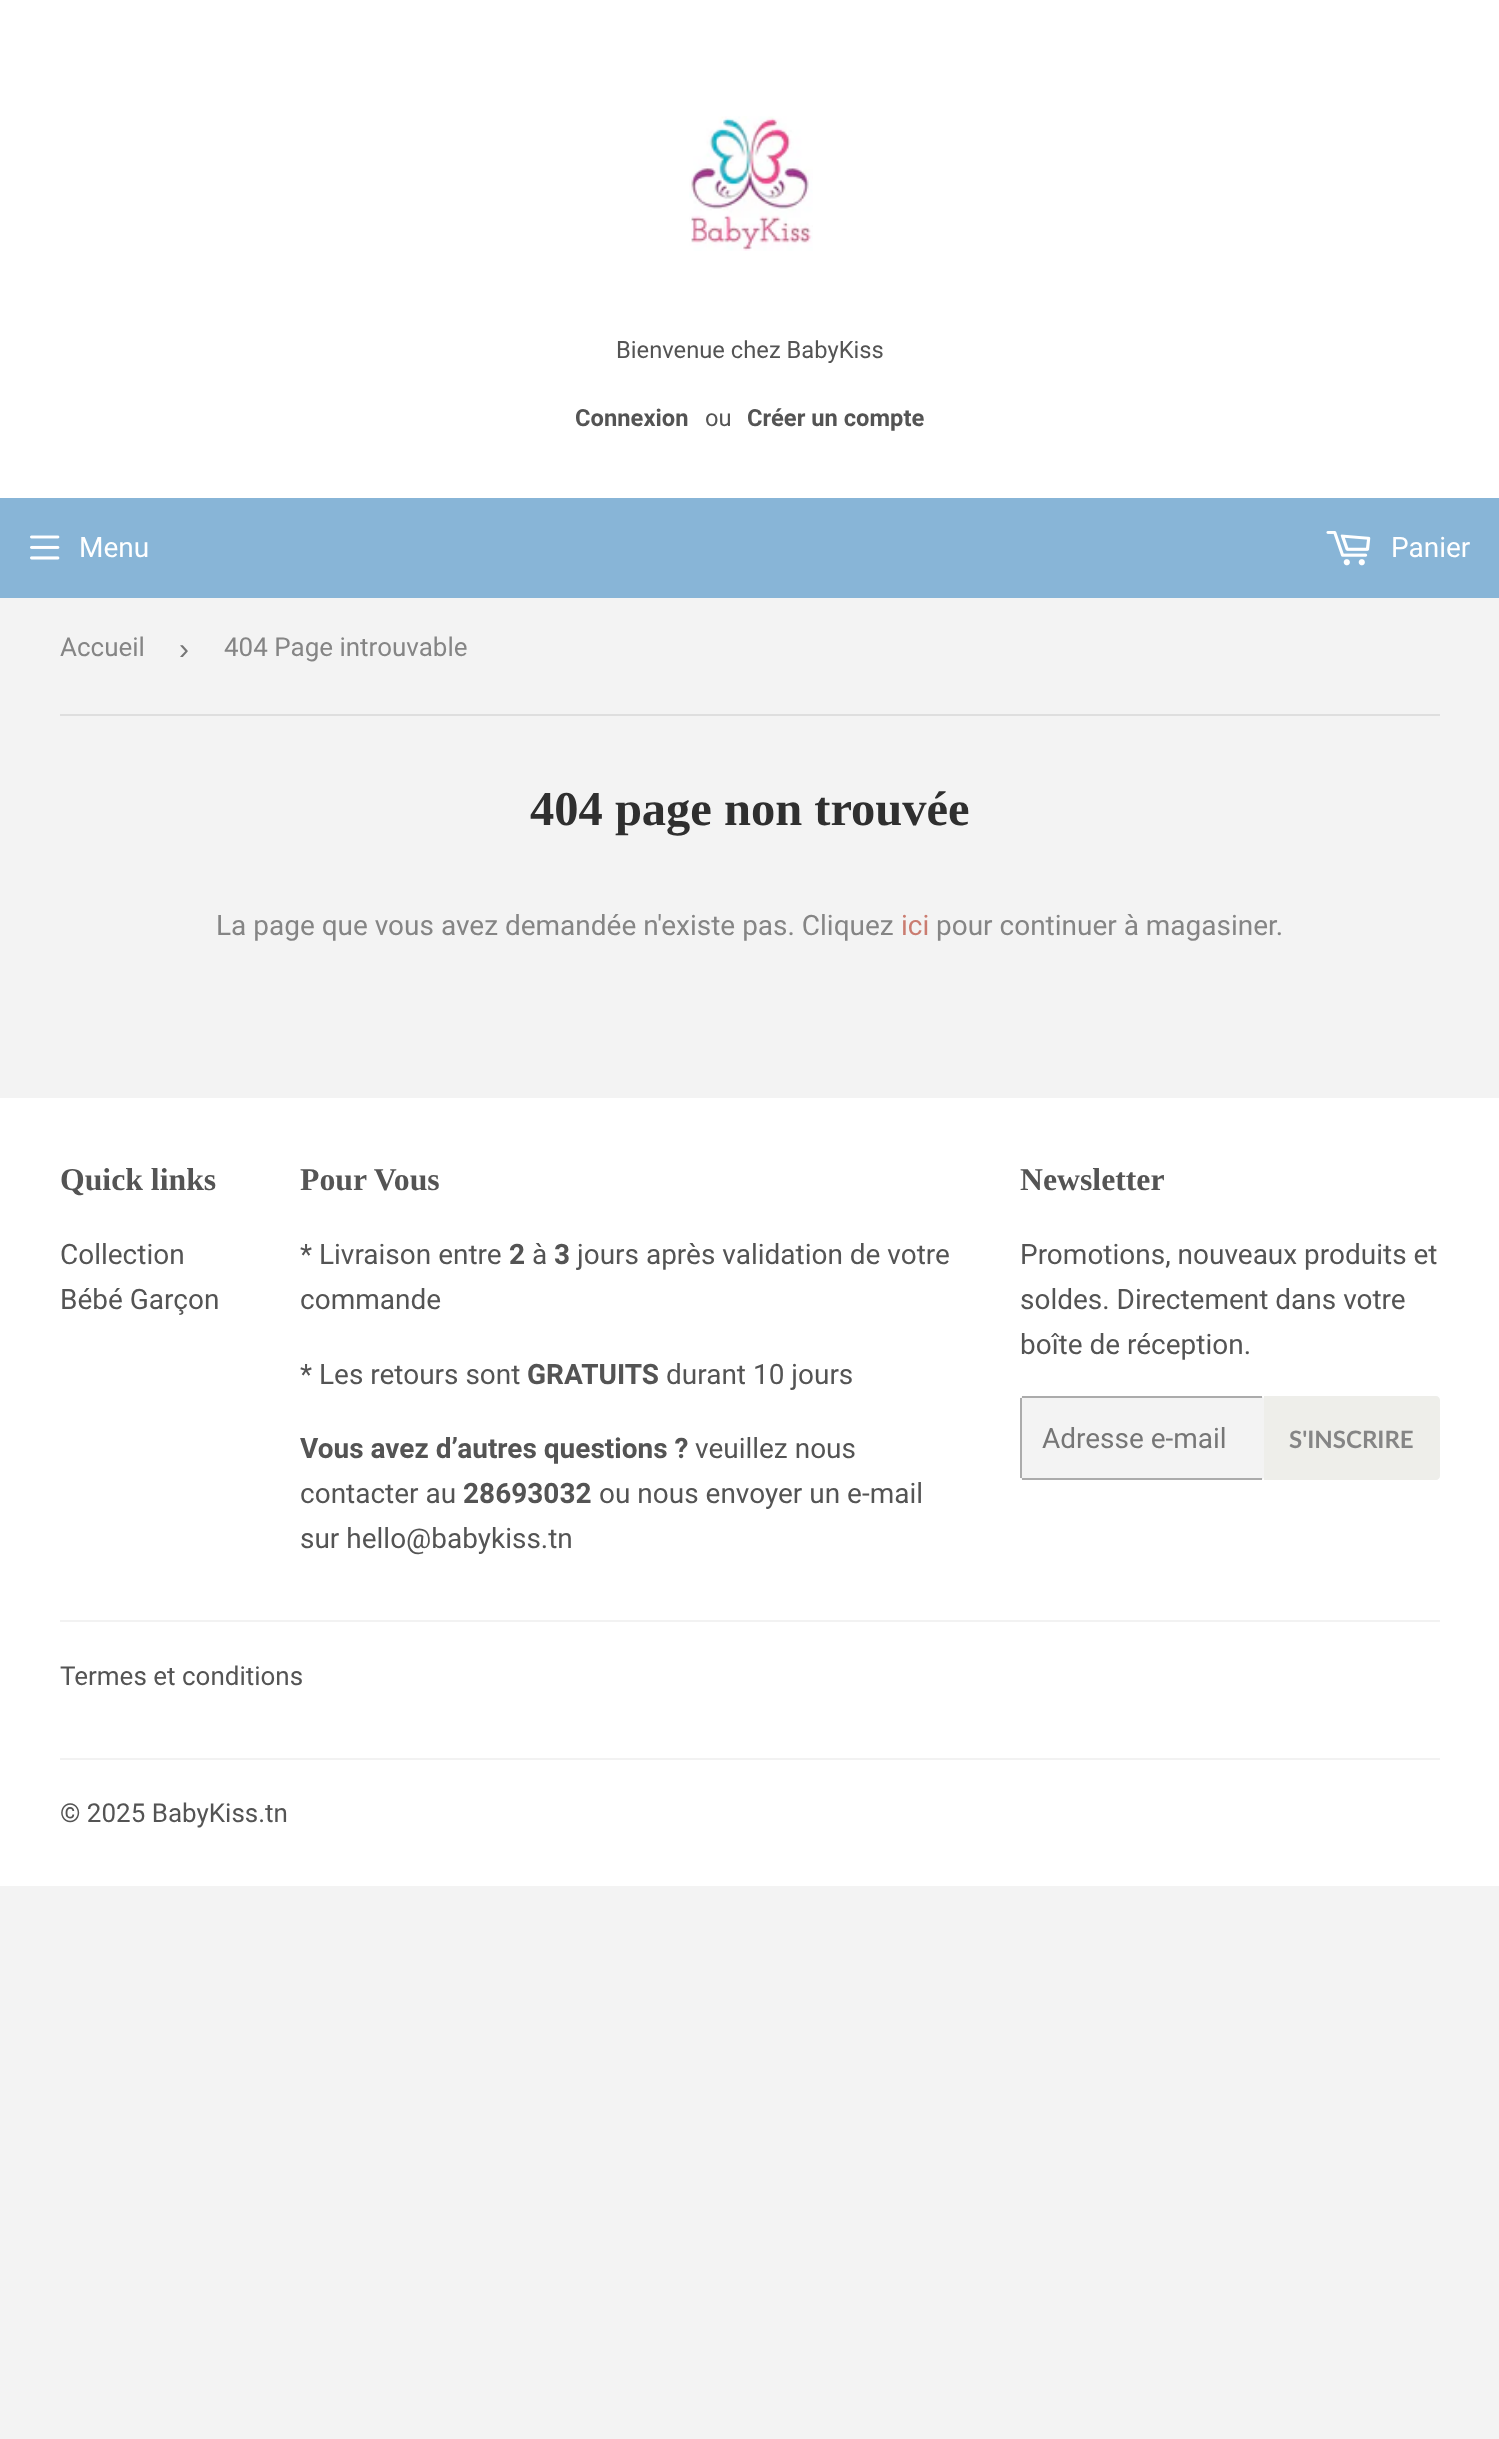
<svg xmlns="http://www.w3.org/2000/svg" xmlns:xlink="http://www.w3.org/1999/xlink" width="1499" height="2439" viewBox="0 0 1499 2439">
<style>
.cls-1{font:23.75px Roboto;fill:#545454}
.cls-2{font:bold 23.75px Roboto;fill:#545454}
.cls-3{font:28px Roboto;fill:#ffffff}
.cls-4{font:26px Roboto;fill:#858585}
.cls-5{font:30px Liberation Sans;fill:#767676}
.cls-6{font:bold 48.5px Liberation Serif;fill:#2f2f2f}
.cls-7{font:28px Roboto;fill:#858585}
.cls-8{font:28px Roboto;fill:#ca7c70}
.cls-9{font:bold 31.75px Liberation Serif;fill:#545454}
.cls-10{font:28px Roboto;fill:#545454}
.cls-11{font:bold 28px Roboto;fill:#545454}
.cls-12{font:28px Roboto;fill:#767676}
.cls-13{font:bold 24px Lato;fill:#858585}
.cls-14{font:26px Roboto;fill:#545454}
</style>
<rect width="100%" height="100%" fill="#f3f3f3"/>
<rect fill="#ffffff" x="0" y="0" width="1499" height="498"/>
<image xlink:href="image0.png" x="689" y="116" width="124" height="135"/>
<rect fill="#88b5d7" x="0" y="498" width="1499" height="100"/>
<image xlink:href="image1.png" x="30" y="535" width="30" height="25"/>
<image xlink:href="image2.png" x="1326" y="531" width="45" height="35"/>
<rect fill="#dedede" x="60" y="714" width="1380" height="2"/>
<rect fill="#ffffff" x="0" y="1098" width="1499" height="788"/>
<rect fill="#f3f3f3" x="1020" y="1396" width="244" height="84" rx="4"/>
<rect fill="#ababab" x="1022" y="1396" width="240" height="2"/>
<rect fill="#ababab" x="1022" y="1478" width="240" height="2"/>
<rect fill="#ababab" x="1020" y="1398" width="2" height="80"/>
<path fill="#eeeeea" d="M1264 1396H1436C1438 1396 1440 1398 1440 1400V1476C1440 1478 1438 1480 1436 1480H1264Z"/>
<rect fill="#f2f2f2" x="60" y="1620" width="1380" height="2"/>
<rect fill="#f2f2f2" x="60" y="1758" width="1380" height="2"/>
<text class="cls-1" x="616" y="358">Bienvenue chez BabyKiss</text>
<text class="cls-2" x="575" y="426">Connexion</text>
<text class="cls-1" x="705" y="426">ou</text>
<text class="cls-2" x="747" y="426">Créer un compte</text>
<text class="cls-3" x="79" y="557">Menu</text>
<text class="cls-3" x="1391" y="557">Panier</text>
<text class="cls-4" x="60" y="656">Accueil</text>
<text class="cls-5" x="179" y="659">›</text>
<text class="cls-4" x="224" y="656">404 Page introuvable</text>
<text class="cls-6" x="530" y="825">404 page non trouvée</text>
<text class="cls-7" x="216" y="935">La page que vous avez demandée n'existe pas. Cliquez</text>
<text class="cls-8" x="901" y="935">ici</text>
<text class="cls-7" x="936" y="935">pour continuer à magasiner.</text>
<text class="cls-9" x="60" y="1190">Quick links</text>
<text class="cls-10"><tspan x="60" y="1264">Collection</tspan><tspan x="60" y="1309">Bébé Garçon</tspan></text>
<text class="cls-9" x="300" y="1190">Pour Vous</text>
<text class="cls-10" x="300" y="1264">* Livraison entre</text>
<text class="cls-11" x="509" y="1264">2</text>
<text class="cls-10" x="532" y="1264">à</text>
<text class="cls-11" x="554" y="1264">3</text>
<text class="cls-10" x="577" y="1264">jours après validation de votre</text>
<text class="cls-10" x="300" y="1309">commande</text>
<text class="cls-10" x="300" y="1384">* Les retours sont</text>
<text class="cls-11" x="527" y="1384">GRATUITS</text>
<text class="cls-10" x="666" y="1384">durant 10 jours</text>
<text class="cls-11" x="300" y="1458">Vous avez d’autres questions ?</text>
<text class="cls-10" x="695" y="1458">veuillez nous</text>
<text class="cls-10" x="300" y="1503">contacter au</text>
<text class="cls-11" x="463" y="1503">28693032</text>
<text class="cls-10" x="599" y="1503">ou nous envoyer un e-mail</text>
<text class="cls-10" x="300" y="1548">sur hello@babykiss.tn</text>
<text class="cls-9" x="1020" y="1190">Newsletter</text>
<text class="cls-10"><tspan x="1020" y="1264">Promotions, nouveaux produits et</tspan><tspan x="1020" y="1309">soldes. Directement dans votre</tspan><tspan x="1020" y="1354">boîte de réception.</tspan></text>
<text class="cls-12" x="1042" y="1448">Adresse e-mail</text>
<text class="cls-13" x="1289" y="1448">S'INSCRIRE</text>
<text class="cls-14" x="60" y="1685">Termes et conditions</text>
<text class="cls-14" x="60" y="1822">© 2025 BabyKiss.tn</text>
</svg>
